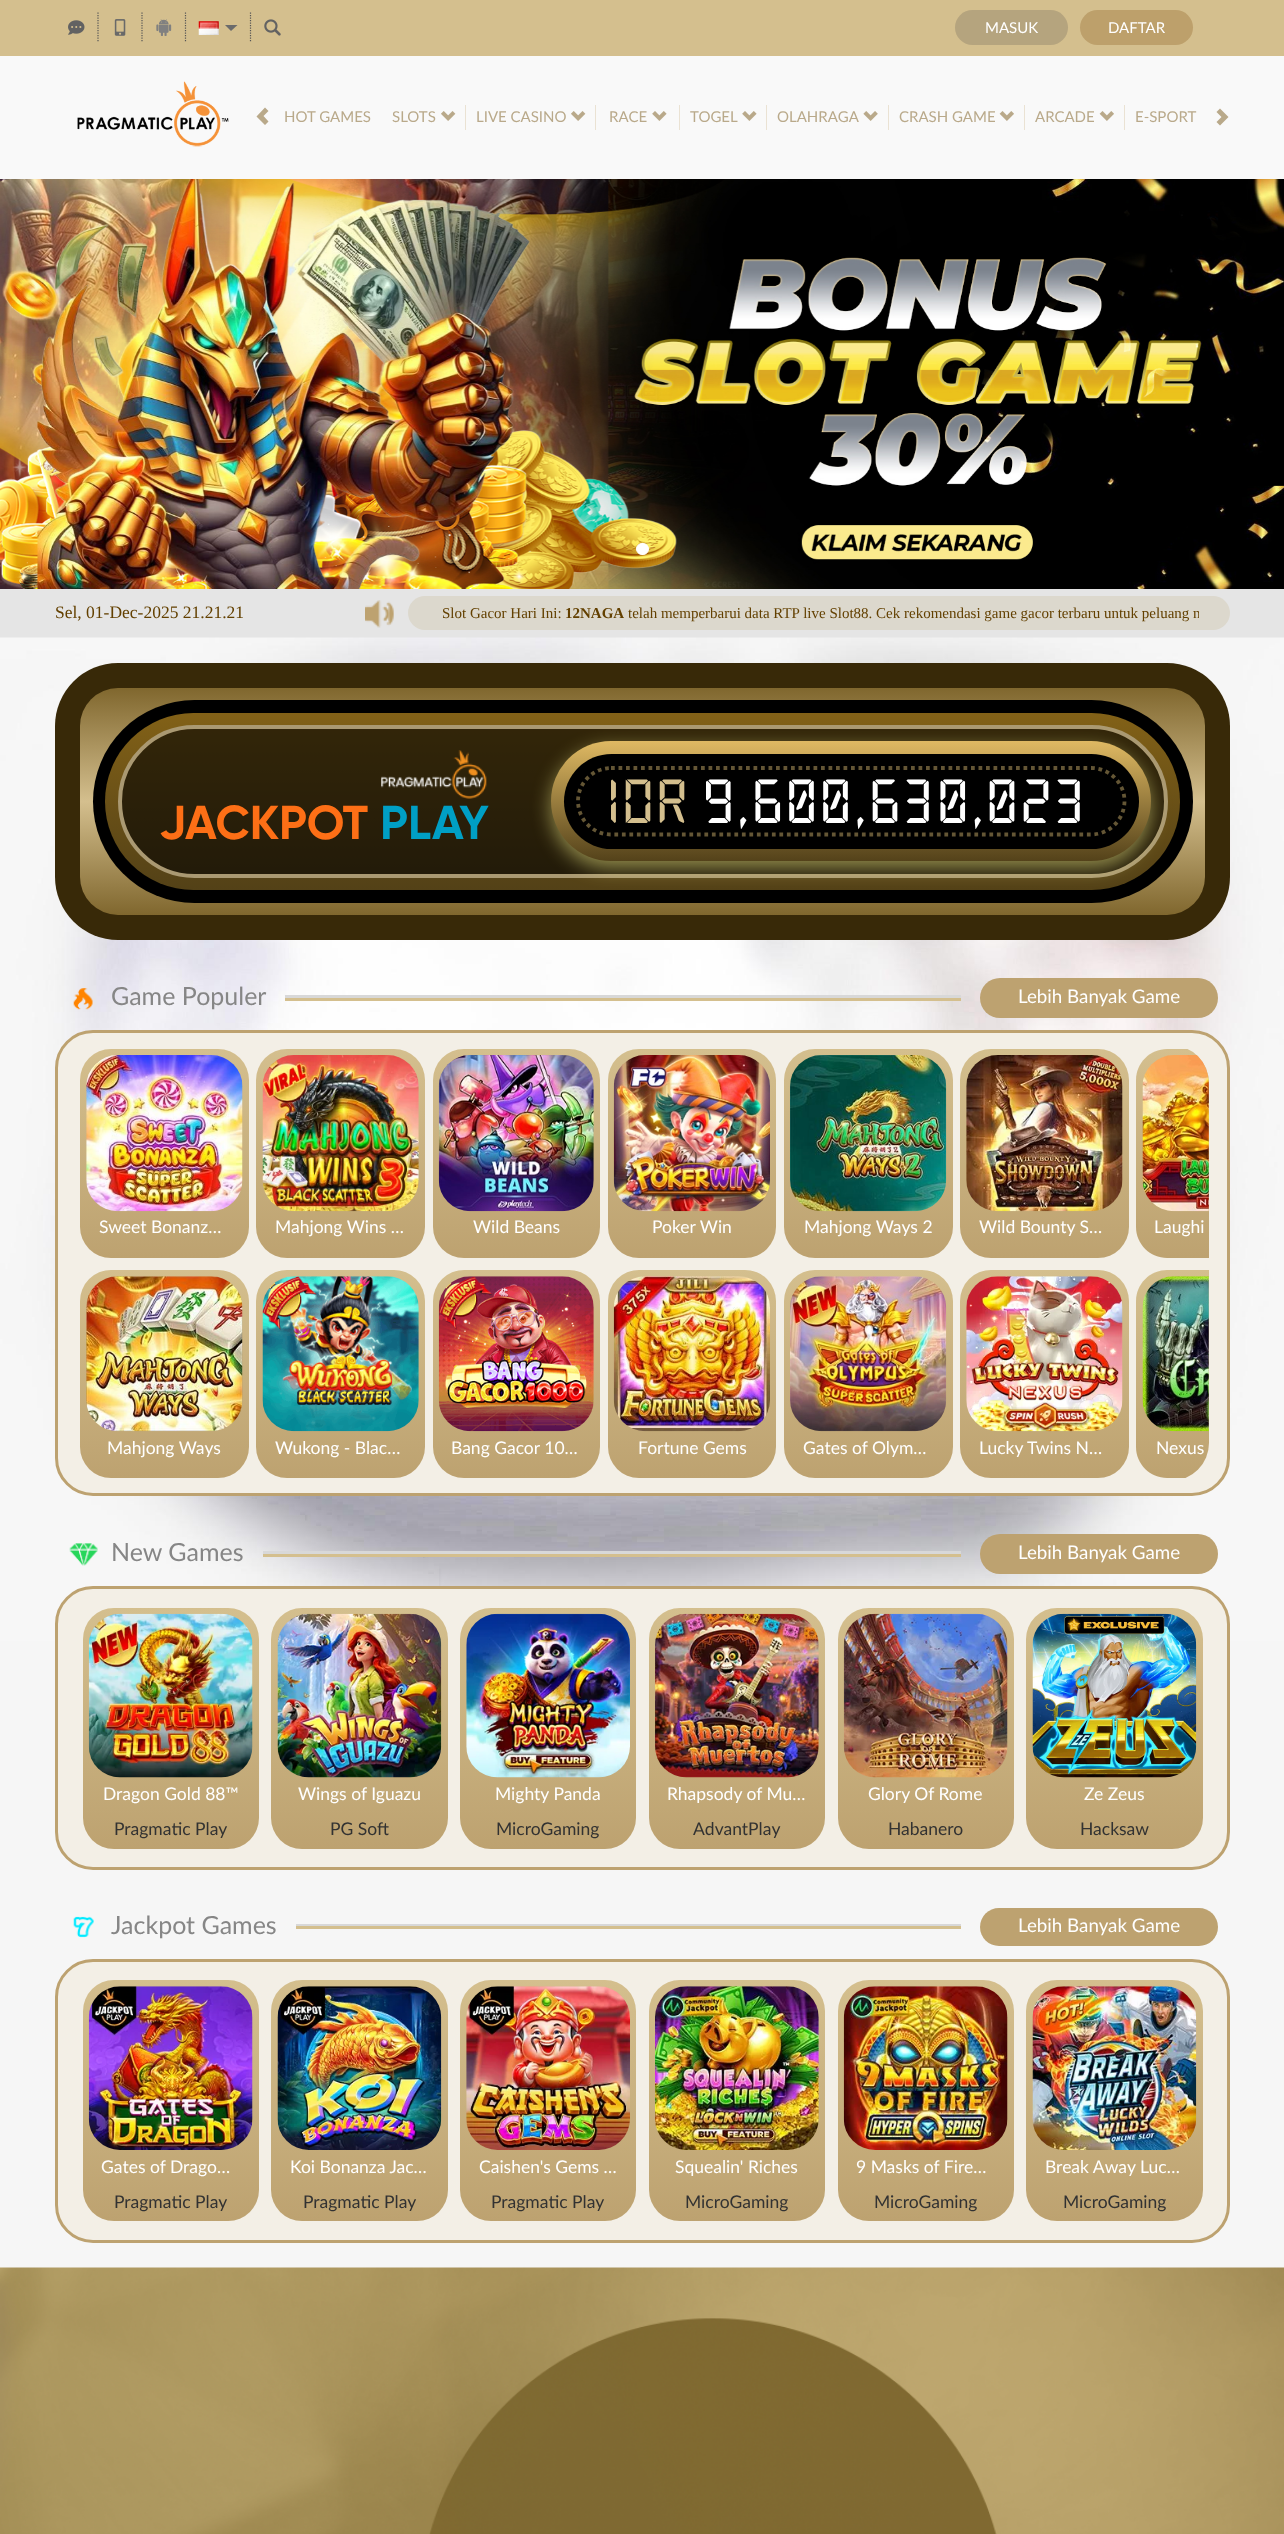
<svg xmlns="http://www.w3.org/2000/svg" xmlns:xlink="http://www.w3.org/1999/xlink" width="1284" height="2534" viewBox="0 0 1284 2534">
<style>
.cls-1{font:15px Lato;fill:#ffffff}
.cls-2{font:15px Lato;fill:#b9a98a}
.cls-3{font:17.5px Liberation Serif;fill:#634000}
.cls-4{font:15px Liberation Serif;fill:#634000}
.cls-5{font:bold 15px Liberation Serif;fill:#634000}
.cls-6{font:bold 47.5px Gilroy;fill:#fd6f16}
.cls-7{font:bold 47.5px Gilroy;fill:#009fc5}
.cls-8{font:62.5px 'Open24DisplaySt';letter-spacing:6.25px;fill:#d4bf8e}
.cls-9{font:62.5px 'Open24DisplaySt';letter-spacing:6.25px;fill:#ffffff}
.cls-10{font:25px Lato;fill:#868686}
.cls-11{font:18.75px Lato;fill:#ffffff}
.cls-12{font:17.5px Lato;fill:#ffffff}
.cls-13{font:17.5px Lato;fill:#323232}
</style>
<defs>
<linearGradient id="g1" gradientUnits="userSpaceOnUse" x1="643" y1="688" x2="643" y2="915"><stop offset="0" stop-color="#80672e"/><stop offset="0.5" stop-color="#d4bf8e"/><stop offset="1" stop-color="#80672e"/></linearGradient>
<linearGradient id="g2" gradientUnits="userSpaceOnUse" x1="643" y1="713" x2="643" y2="890"><stop offset="0" stop-color="#826117"/><stop offset="1" stop-color="#534117"/></linearGradient>
<linearGradient id="g3" gradientUnits="userSpaceOnUse" x1="851" y1="741" x2="851" y2="861"><stop offset="0" stop-color="#dfb963"/><stop offset="1" stop-color="#54421a"/></linearGradient>
<linearGradient id="g4" gradientUnits="userSpaceOnUse" x1="164" y1="1049" x2="164" y2="1258"><stop offset="0" stop-color="#d4bf8e"/><stop offset="1" stop-color="#bda270"/></linearGradient>
<linearGradient id="g5" gradientUnits="userSpaceOnUse" x1="164" y1="1270" x2="164" y2="1478"><stop offset="0" stop-color="#d4bf8e"/><stop offset="1" stop-color="#bda270"/></linearGradient>
<linearGradient id="g6" gradientUnits="userSpaceOnUse" x1="341" y1="1049" x2="341" y2="1258"><stop offset="0" stop-color="#d4bf8e"/><stop offset="1" stop-color="#bda270"/></linearGradient>
<linearGradient id="g7" gradientUnits="userSpaceOnUse" x1="341" y1="1270" x2="341" y2="1478"><stop offset="0" stop-color="#d4bf8e"/><stop offset="1" stop-color="#bda270"/></linearGradient>
<linearGradient id="g8" gradientUnits="userSpaceOnUse" x1="516" y1="1049" x2="516" y2="1258"><stop offset="0" stop-color="#d4bf8e"/><stop offset="1" stop-color="#bda270"/></linearGradient>
<linearGradient id="g9" gradientUnits="userSpaceOnUse" x1="516" y1="1270" x2="516" y2="1478"><stop offset="0" stop-color="#d4bf8e"/><stop offset="1" stop-color="#bda270"/></linearGradient>
<linearGradient id="g10" gradientUnits="userSpaceOnUse" x1="692" y1="1049" x2="692" y2="1258"><stop offset="0" stop-color="#d4bf8e"/><stop offset="1" stop-color="#bda270"/></linearGradient>
<linearGradient id="g11" gradientUnits="userSpaceOnUse" x1="692" y1="1270" x2="692" y2="1478"><stop offset="0" stop-color="#d4bf8e"/><stop offset="1" stop-color="#bda270"/></linearGradient>
<linearGradient id="g12" gradientUnits="userSpaceOnUse" x1="868" y1="1049" x2="868" y2="1258"><stop offset="0" stop-color="#d4bf8e"/><stop offset="1" stop-color="#bda270"/></linearGradient>
<linearGradient id="g13" gradientUnits="userSpaceOnUse" x1="868" y1="1270" x2="868" y2="1478"><stop offset="0" stop-color="#d4bf8e"/><stop offset="1" stop-color="#bda270"/></linearGradient>
<linearGradient id="g14" gradientUnits="userSpaceOnUse" x1="1044" y1="1049" x2="1044" y2="1258"><stop offset="0" stop-color="#d4bf8e"/><stop offset="1" stop-color="#bda270"/></linearGradient>
<linearGradient id="g15" gradientUnits="userSpaceOnUse" x1="1044" y1="1270" x2="1044" y2="1478"><stop offset="0" stop-color="#d4bf8e"/><stop offset="1" stop-color="#bda270"/></linearGradient>
<clipPath id="clip1"><rect x="76" y="1045" width="1133" height="436" rx="38"/></clipPath>
<linearGradient id="g16" gradientUnits="userSpaceOnUse" x1="1220" y1="1049" x2="1220" y2="1258"><stop offset="0" stop-color="#d4bf8e"/><stop offset="1" stop-color="#bda270"/></linearGradient>
<linearGradient id="g17" gradientUnits="userSpaceOnUse" x1="1220" y1="1270" x2="1220" y2="1478"><stop offset="0" stop-color="#d4bf8e"/><stop offset="1" stop-color="#bda270"/></linearGradient>
<linearGradient id="g18" gradientUnits="userSpaceOnUse" x1="171" y1="1608" x2="171" y2="1849"><stop offset="0" stop-color="#d4bf8e"/><stop offset="1" stop-color="#bda270"/></linearGradient>
<linearGradient id="g19" gradientUnits="userSpaceOnUse" x1="359" y1="1608" x2="359" y2="1849"><stop offset="0" stop-color="#d4bf8e"/><stop offset="1" stop-color="#bda270"/></linearGradient>
<linearGradient id="g20" gradientUnits="userSpaceOnUse" x1="548" y1="1608" x2="548" y2="1849"><stop offset="0" stop-color="#d4bf8e"/><stop offset="1" stop-color="#bda270"/></linearGradient>
<linearGradient id="g21" gradientUnits="userSpaceOnUse" x1="737" y1="1608" x2="737" y2="1849"><stop offset="0" stop-color="#d4bf8e"/><stop offset="1" stop-color="#bda270"/></linearGradient>
<linearGradient id="g22" gradientUnits="userSpaceOnUse" x1="926" y1="1608" x2="926" y2="1849"><stop offset="0" stop-color="#d4bf8e"/><stop offset="1" stop-color="#bda270"/></linearGradient>
<linearGradient id="g23" gradientUnits="userSpaceOnUse" x1="1114" y1="1608" x2="1114" y2="1849"><stop offset="0" stop-color="#d4bf8e"/><stop offset="1" stop-color="#bda270"/></linearGradient>
<linearGradient id="g24" gradientUnits="userSpaceOnUse" x1="171" y1="1980" x2="171" y2="2221"><stop offset="0" stop-color="#d4bf8e"/><stop offset="1" stop-color="#bda270"/></linearGradient>
<linearGradient id="g25" gradientUnits="userSpaceOnUse" x1="359" y1="1980" x2="359" y2="2221"><stop offset="0" stop-color="#d4bf8e"/><stop offset="1" stop-color="#bda270"/></linearGradient>
<linearGradient id="g26" gradientUnits="userSpaceOnUse" x1="548" y1="1980" x2="548" y2="2221"><stop offset="0" stop-color="#d4bf8e"/><stop offset="1" stop-color="#bda270"/></linearGradient>
<linearGradient id="g27" gradientUnits="userSpaceOnUse" x1="737" y1="1980" x2="737" y2="2221"><stop offset="0" stop-color="#d4bf8e"/><stop offset="1" stop-color="#bda270"/></linearGradient>
<linearGradient id="g28" gradientUnits="userSpaceOnUse" x1="926" y1="1980" x2="926" y2="2221"><stop offset="0" stop-color="#d4bf8e"/><stop offset="1" stop-color="#bda270"/></linearGradient>
<linearGradient id="g29" gradientUnits="userSpaceOnUse" x1="1114" y1="1980" x2="1114" y2="2221"><stop offset="0" stop-color="#d4bf8e"/><stop offset="1" stop-color="#bda270"/></linearGradient>
<clipPath id="clip2"><rect x="439" y="603" width="760" height="21"/></clipPath>
</defs>
<rect width="100%" height="100%" fill="#e5e5e5"/>
<rect fill="#d4bf8e" x="0" y="0" width="1284" height="56"/>
<image xlink:href="image0.png" x="68" y="20" width="17" height="15"/>
<path fill="none" stroke="#555555" stroke-width="1.2" stroke-dasharray="1.25 1.25" d="M98 12.5V42.5M142 12.5V42.5"/>
<image xlink:href="image1.png" x="114" y="19" width="12" height="17"/>
<image xlink:href="image2.png" x="156" y="19" width="16" height="17"/>
<path fill="none" stroke="#555555" stroke-width="1.2" stroke-dasharray="1.25 1.25" d="M185.5 12.5V42.5"/>
<image xlink:href="image3.png" x="198" y="21" width="21" height="14"/>
<path fill="#6b6b6b" d="M225 25H237.5L231 31Z"/>
<path fill="none" stroke="#555555" stroke-width="1.2" stroke-dasharray="1.25 1.25" d="M250.5 12.5V42.5"/>
<image xlink:href="image4.png" x="264" y="19" width="17" height="17"/>
<rect fill="#b5a47e" x="955" y="10" width="113" height="35" rx="17.5"/>
<rect fill="#bda06b" x="1080" y="10" width="113" height="35" rx="17.5"/>
<rect fill="#f9f9f9" x="0" y="56" width="1284" height="123"/>
<image xlink:href="image5.png" x="77" y="81" width="152" height="66"/>
<path fill="#b9a98a" d="M265 125L268.5 121.5L263.5 116L268.5 111L265 107.5L256.5 116.5Z"/>
<image xlink:href="image6.png" x="441" y="111" width="15" height="10"/>
<rect fill="#eae2d3" x="465" y="105" width="1" height="25"/>
<image xlink:href="image6.png" x="571" y="111" width="15" height="10"/>
<rect fill="#eae2d3" x="595" y="105" width="1" height="25"/>
<image xlink:href="image7.png" x="652" y="111" width="15" height="10"/>
<rect fill="#eae2d3" x="679" y="105" width="1" height="25"/>
<image xlink:href="image7.png" x="742" y="111" width="15" height="10"/>
<rect fill="#eae2d3" x="766" y="105" width="1" height="25"/>
<image xlink:href="image8.png" x="863" y="111" width="15" height="10"/>
<rect fill="#eae2d3" x="888" y="105" width="1" height="25"/>
<image xlink:href="image9.png" x="999" y="111" width="15" height="10"/>
<rect fill="#eae2d3" x="1024" y="105" width="1" height="25"/>
<image xlink:href="image9.png" x="1099" y="111" width="15" height="10"/>
<rect fill="#eae2d3" x="1124" y="105" width="1" height="25"/>
<path fill="#b9a98a" d="M1220 125.5L1216.5 122L1221.5 117L1216.5 112L1220 108.5L1228.5 117Z"/>
<image xlink:href="image10.png" x="0" y="179" width="1284" height="410"/>
<rect fill="#ffffff" stroke="#ffffff" x="636.5" y="543.5" width="12" height="11" rx="5.5"/>
<image xlink:href="image11.png" x="365" y="600" width="29" height="28"/>
<rect fill="#dcd8cd" x="408" y="596" width="822" height="34" rx="17"/>
<rect fill="#f6f6f6" x="0" y="1641" width="1284" height="627"/>
<image xlink:href="image12.png" x="0" y="637" width="1284" height="1004"/>
<rect fill="#382908" x="55" y="663" width="1175" height="277" rx="63"/>
<rect fill="url(#g1)" x="80" y="688" width="1125" height="227" rx="38"/>
<rect fill="#000000" x="93" y="700" width="1100" height="203" rx="101.5"/>
<rect fill="url(#g2)" x="105" y="713" width="1075" height="177" rx="88.5"/>
<rect fill="#000000" fill-opacity="0.6" stroke="#aa9972" stroke-width="4" x="120" y="727" width="1046" height="149" rx="74.5"/>
<image xlink:href="image13.png" x="381" y="750" width="106" height="49"/>
<rect fill="#fffb90" fill-opacity="0.5" filter="blur(9.5px)" x="551" y="748" width="600" height="120" rx="60"/>
<rect fill="url(#g3)" x="551" y="741" width="600" height="120" rx="60"/>
<rect fill="#000000" x="564" y="754" width="575" height="95" rx="47.5"/>
<path fill="none" stroke="#645635" stroke-width="3.8" stroke-dasharray="3.75 3.75" d="M611 768H1091C1109.5 768 1124.5 783 1124.5 801C1124.5 819.5 1109.5 834.5 1091 834.5H611C593 834.5 578 819.5 578 801C578 783 593 768 611 768Z"/>
<image xlink:href="image14.png" x="73" y="988" width="20" height="22"/>
<rect fill="#d8d8d8" x="285" y="995" width="676" height="3"/>
<rect fill="#d4bf8e" x="285" y="998" width="676" height="3"/>
<rect fill="#bda270" x="980" y="978" width="238" height="40" rx="20"/>
<rect fill="#f3efe6" stroke="#bda270" stroke-width="3" x="56.5" y="1031.5" width="1172" height="463" rx="36.5"/>
<rect fill="url(#g4)" x="80" y="1049" width="169" height="209" rx="31"/>
<image xlink:href="image15.png" x="86" y="1055" width="157" height="157"/>
<rect fill="url(#g5)" x="80" y="1270" width="169" height="208" rx="31"/>
<image xlink:href="image16.png" x="86" y="1276" width="157" height="156"/>
<rect fill="url(#g6)" x="256" y="1049" width="169" height="209" rx="31"/>
<image xlink:href="image17.png" x="262" y="1055" width="157" height="157"/>
<rect fill="url(#g7)" x="256" y="1270" width="169" height="208" rx="31"/>
<image xlink:href="image18.png" x="262" y="1276" width="157" height="156"/>
<rect fill="url(#g8)" x="433" y="1049" width="167" height="209" rx="31"/>
<image xlink:href="image19.png" x="438" y="1055" width="156" height="157"/>
<rect fill="url(#g9)" x="433" y="1270" width="167" height="208" rx="31"/>
<image xlink:href="image20.png" x="438" y="1276" width="156" height="156"/>
<rect fill="url(#g10)" x="608" y="1049" width="168" height="209" rx="31"/>
<image xlink:href="image21.png" x="613" y="1055" width="157" height="157"/>
<rect fill="url(#g11)" x="608" y="1270" width="168" height="208" rx="31"/>
<image xlink:href="image22.png" x="613" y="1276" width="157" height="156"/>
<rect fill="url(#g12)" x="784" y="1049" width="169" height="209" rx="31"/>
<image xlink:href="image23.png" x="790" y="1055" width="157" height="157"/>
<rect fill="url(#g13)" x="784" y="1270" width="169" height="208" rx="31"/>
<image xlink:href="image24.png" x="790" y="1276" width="157" height="156"/>
<rect fill="url(#g14)" x="960" y="1049" width="169" height="209" rx="31"/>
<image xlink:href="image25.png" x="966" y="1055" width="157" height="157"/>
<rect fill="url(#g15)" x="960" y="1270" width="169" height="208" rx="31"/>
<image xlink:href="image26.png" x="966" y="1276" width="157" height="156"/>
<g clip-path="url(#clip1)">
<path fill="url(#g16)" d="M1167 1049H1209V1258H1167C1150 1258 1136 1244 1136 1227V1080C1136 1063 1150 1049 1167 1049Z"/>
</g>
<image xlink:href="image27.png" x="1142" y="1055" width="67" height="157"/>
<g clip-path="url(#clip1)">
<path fill="url(#g17)" d="M1167 1270H1209V1478H1167C1150 1478 1136 1464 1136 1447V1301C1136 1284 1150 1270 1167 1270Z"/>
</g>
<image xlink:href="image28.png" x="1142" y="1276" width="67" height="156"/>
<image xlink:href="image29.png" x="69" y="1543" width="29" height="23"/>
<rect fill="#d8d8d8" x="263" y="1551" width="698" height="3"/>
<rect fill="#d4bf8e" x="263" y="1554" width="698" height="3"/>
<rect fill="#bda270" x="980" y="1534" width="238" height="40" rx="20"/>
<rect fill="#f3efe6" stroke="#bda270" stroke-width="3" x="56.5" y="1587.5" width="1172" height="281" rx="36.5"/>
<rect fill="url(#g18)" x="83" y="1608" width="176" height="241" rx="31"/>
<image xlink:href="image30.png" x="88" y="1613" width="165" height="165"/>
<rect fill="url(#g19)" x="271" y="1608" width="177" height="241" rx="31"/>
<image xlink:href="image31.png" x="277" y="1613" width="165" height="165"/>
<rect fill="url(#g20)" x="460" y="1608" width="176" height="241" rx="31"/>
<image xlink:href="image32.png" x="466" y="1613" width="164" height="165"/>
<rect fill="url(#g21)" x="649" y="1608" width="176" height="241" rx="31"/>
<image xlink:href="image33.png" x="655" y="1613" width="164" height="165"/>
<rect fill="url(#g22)" x="838" y="1608" width="176" height="241" rx="31"/>
<image xlink:href="image34.png" x="843" y="1613" width="165" height="165"/>
<rect fill="url(#g23)" x="1026" y="1608" width="177" height="241" rx="31"/>
<image xlink:href="image35.png" x="1032" y="1613" width="165" height="165"/>
<image xlink:href="image36.png" x="73" y="1916" width="21" height="22"/>
<rect fill="#d8d8d8" x="296" y="1924" width="665" height="2"/>
<rect fill="#d4bf8e" x="296" y="1926" width="665" height="3"/>
<rect fill="#bda270" x="980" y="1908" width="238" height="38" rx="19"/>
<rect fill="#f3efe6" stroke="#bda270" stroke-width="3" x="56.5" y="1960.5" width="1172" height="281" rx="36.5"/>
<rect fill="url(#g24)" x="83" y="1980" width="176" height="241" rx="31"/>
<image xlink:href="image37.png" x="88" y="1986" width="165" height="164"/>
<rect fill="url(#g25)" x="271" y="1980" width="177" height="241" rx="31"/>
<image xlink:href="image38.png" x="277" y="1986" width="165" height="164"/>
<rect fill="url(#g26)" x="460" y="1980" width="176" height="241" rx="31"/>
<image xlink:href="image39.png" x="466" y="1986" width="164" height="164"/>
<rect fill="url(#g27)" x="649" y="1980" width="176" height="241" rx="31"/>
<image xlink:href="image40.png" x="655" y="1986" width="164" height="164"/>
<rect fill="url(#g28)" x="838" y="1980" width="176" height="241" rx="31"/>
<image xlink:href="image41.png" x="843" y="1986" width="165" height="164"/>
<rect fill="url(#g29)" x="1026" y="1980" width="177" height="241" rx="31"/>
<image xlink:href="image42.png" x="1032" y="1986" width="165" height="164"/>
<image xlink:href="image43.png" x="0" y="2267" width="1284" height="267"/>
<text class="cls-1" x="985" y="33">MASUK</text>
<text class="cls-1" x="1108" y="33">DAFTAR</text>
<text class="cls-2" x="284" y="122">HOT GAMES</text>
<text class="cls-2" x="392" y="122">SLOTS</text>
<text class="cls-2" x="476" y="122">LIVE CASINO</text>
<text class="cls-2" x="609" y="122">RACE</text>
<text class="cls-2" x="690" y="122">TOGEL</text>
<text class="cls-2" x="777" y="122">OLAHRAGA</text>
<text class="cls-2" x="899" y="122">CRASH GAME</text>
<text class="cls-2" x="1035" y="122">ARCADE</text>
<text class="cls-2" x="1135" y="122">E-SPORT</text>
<text class="cls-3" x="55" y="618">Sel, 01-Dec-2025 21.21.21</text>
<text class="cls-4" x="442" y="618">Slot Gacor Hari Ini:</text>
<text class="cls-5" x="565" y="618">12NAGA</text>
<g clip-path="url(#clip2)">
<text class="cls-4" x="628" y="618">telah memperbarui data RTP live Slot88. Cek rekomendasi game gacor terbaru untuk peluang m</text>
</g>
<text class="cls-6" x="159" y="839">JACKPOT</text>
<text class="cls-7" x="380" y="839">PLAY</text>
<text class="cls-8" x="611" y="823">IDR</text>
<text class="cls-9" x="706" y="823">9,600,630,023</text>
<text class="cls-10" x="111" y="1005">Game Populer</text>
<text class="cls-11" x="1018" y="1003">Lebih Banyak Game</text>
<text class="cls-12" x="99" y="1233">Sweet Bonanz…</text>
<text class="cls-12" x="107" y="1454">Mahjong Ways</text>
<text class="cls-12" x="275" y="1233">Mahjong Wins …</text>
<text class="cls-12" x="275" y="1454">Wukong - Blac…</text>
<text class="cls-12" x="473" y="1233">Wild Beans</text>
<text class="cls-12" x="451" y="1454">Bang Gacor 10…</text>
<text class="cls-12" x="652" y="1233">Poker Win</text>
<text class="cls-12" x="638" y="1454">Fortune Gems</text>
<text class="cls-12" x="804" y="1233">Mahjong Ways 2</text>
<text class="cls-12" x="803" y="1454">Gates of Olym…</text>
<text class="cls-12" x="979" y="1233">Wild Bounty S…</text>
<text class="cls-12" x="979" y="1454">Lucky Twins N…</text>
<text class="cls-12" x="1154" y="1233">Laughi</text>
<text class="cls-12" x="1156" y="1454">Nexus</text>
<text class="cls-10" x="111" y="1561">New Games</text>
<text class="cls-11" x="1018" y="1559">Lebih Banyak Game</text>
<text class="cls-12" x="103" y="1800">Dragon Gold 88™</text>
<text class="cls-13" x="114" y="1835">Pragmatic Play</text>
<text class="cls-12" x="298" y="1800">Wings of Iguazu</text>
<text class="cls-13" x="330" y="1835">PG Soft</text>
<text class="cls-12" x="495" y="1800">Mighty Panda</text>
<text class="cls-13" x="496" y="1835">MicroGaming</text>
<text class="cls-12" x="667" y="1800">Rhapsody of Mu…</text>
<text class="cls-13" x="693" y="1835">AdvantPlay</text>
<text class="cls-12" x="868" y="1800">Glory Of Rome</text>
<text class="cls-13" x="888" y="1835">Habanero</text>
<text class="cls-12" x="1084" y="1800">Ze Zeus</text>
<text class="cls-13" x="1080" y="1835">Hacksaw</text>
<text class="cls-10" x="111" y="1934">Jackpot Games</text>
<text class="cls-11" x="1018" y="1932">Lebih Banyak Game</text>
<text class="cls-12" x="101" y="2173">Gates of Drago…</text>
<text class="cls-13" x="114" y="2208">Pragmatic Play</text>
<text class="cls-12" x="290" y="2173">Koi Bonanza Jac…</text>
<text class="cls-13" x="303" y="2208">Pragmatic Play</text>
<text class="cls-12" x="479" y="2173">Caishen's Gems …</text>
<text class="cls-13" x="491" y="2208">Pragmatic Play</text>
<text class="cls-12" x="675" y="2173">Squealin' Riches</text>
<text class="cls-13" x="685" y="2208">MicroGaming</text>
<text class="cls-12" x="856" y="2173">9 Masks of Fire…</text>
<text class="cls-13" x="874" y="2208">MicroGaming</text>
<text class="cls-12" x="1045" y="2173">Break Away Luc…</text>
<text class="cls-13" x="1063" y="2208">MicroGaming</text>
</svg>
